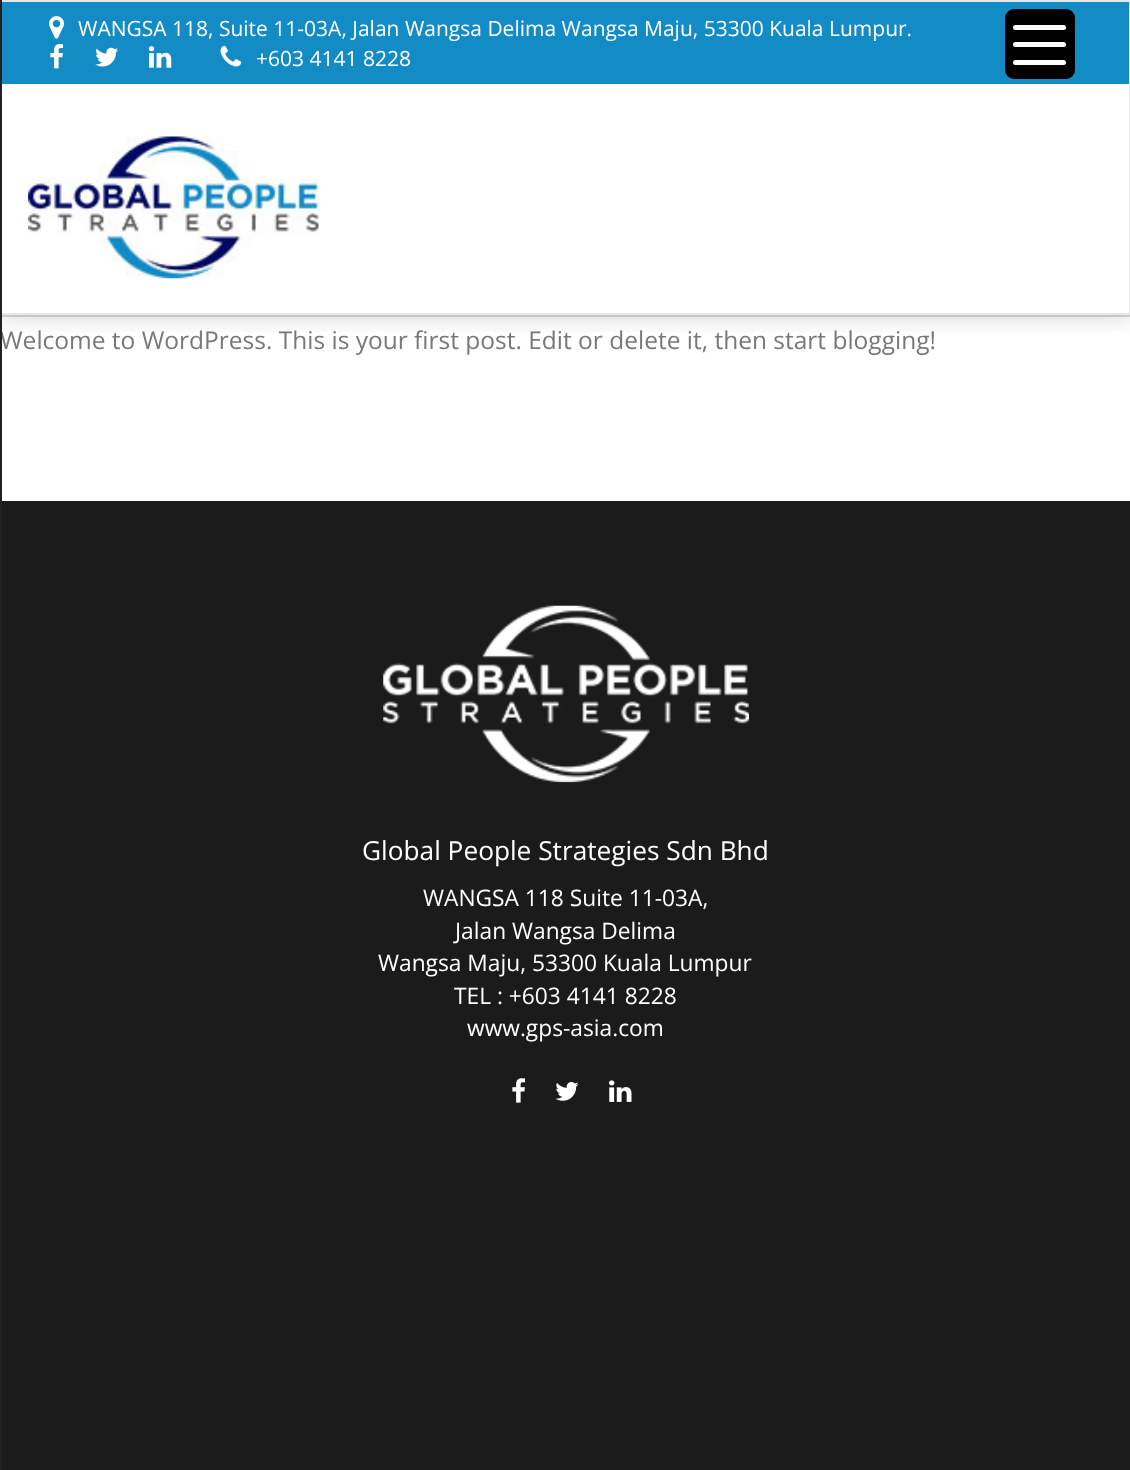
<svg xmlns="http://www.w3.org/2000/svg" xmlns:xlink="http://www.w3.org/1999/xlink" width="1130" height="1470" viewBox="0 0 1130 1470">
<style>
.cls-1{font:21px Open Sans;fill:#ffffff}
.cls-2{font:24.5px Open Sans;fill:#787878}
.cls-3{font:26.25px Open Sans;fill:#ffffff}
.cls-4{font:22.75px Open Sans;fill:#ffffff}
</style>
<defs>
<clipPath id="clip1"><rect x="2" y="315" width="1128" height="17"/></clipPath>
</defs>
<rect width="100%" height="100%" fill="#ffffff"/>
<rect fill="#dadada" x="0" y="315" width="1130" height="2"/>
<g clip-path="url(#clip1)">
<rect fill="#000000" fill-opacity="0.2" filter="blur(13px)" x="0" y="0" width="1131" height="315"/>
</g>
<rect fill="none" stroke="#e7e7e7" stroke-width="2" x="1" y="1" width="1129" height="313"/>
<rect fill="#138bc5" x="2" y="2" width="1127" height="82"/>
<rect fill="#000000" x="1005" y="9" width="70" height="70" rx="9"/>
<rect fill="#ffffff" x="1013" y="42" width="53" height="5" rx="2.5"/>
<rect fill="#ffffff" x="1013" y="25" width="53" height="5" rx="2.5"/>
<rect fill="#ffffff" x="1013" y="60" width="53" height="5" rx="2.5"/>
<image xlink:href="image0.png" x="49" y="16" width="15" height="23"/>
<image xlink:href="image1.png" x="50" y="44" width="14" height="25"/>
<image xlink:href="image2.png" x="95" y="47" width="24" height="20"/>
<image xlink:href="image3.png" x="148" y="46" width="24" height="22"/>
<image xlink:href="image4.png" x="220" y="45" width="22" height="22"/>
<image xlink:href="image5.png" x="28" y="136" width="291" height="143"/>
<rect fill="#1b1b1b" x="2" y="501" width="1128" height="969"/>
<image xlink:href="image6.png" x="383" y="605" width="366" height="178"/>
<image xlink:href="image7.png" x="512" y="1078" width="14" height="25"/>
<image xlink:href="image8.png" x="555" y="1082" width="24" height="19"/>
<image xlink:href="image9.png" x="609" y="1080" width="23" height="22"/>
<text class="cls-1" x="78" y="36">WANGSA 118, Suite 11-03A, Jalan Wangsa Delima Wangsa Maju, 53300 Kuala Lumpur.</text>
<text class="cls-1" x="256" y="66">+603 4141 8228</text>
<text class="cls-2" x="0" y="349">Welcome to WordPress. This is your first post. Edit or delete it, then start blogging!</text>
<rect fill="#212121" x="0" y="0" width="2" height="1470"/>
<text class="cls-3" x="362" y="860">Global People Strategies Sdn Bhd</text>
<text class="cls-4" x="423" y="906">WANGSA 118 Suite 11-03A,</text>
<text class="cls-4" x="455" y="939">Jalan Wangsa Delima</text>
<text class="cls-4" x="378" y="971">Wangsa Maju, 53300 Kuala Lumpur</text>
<text class="cls-4" x="454" y="1004">TEL : +603 4141 8228</text>
<text class="cls-4" x="467" y="1036">www.gps-asia.com</text>
</svg>
